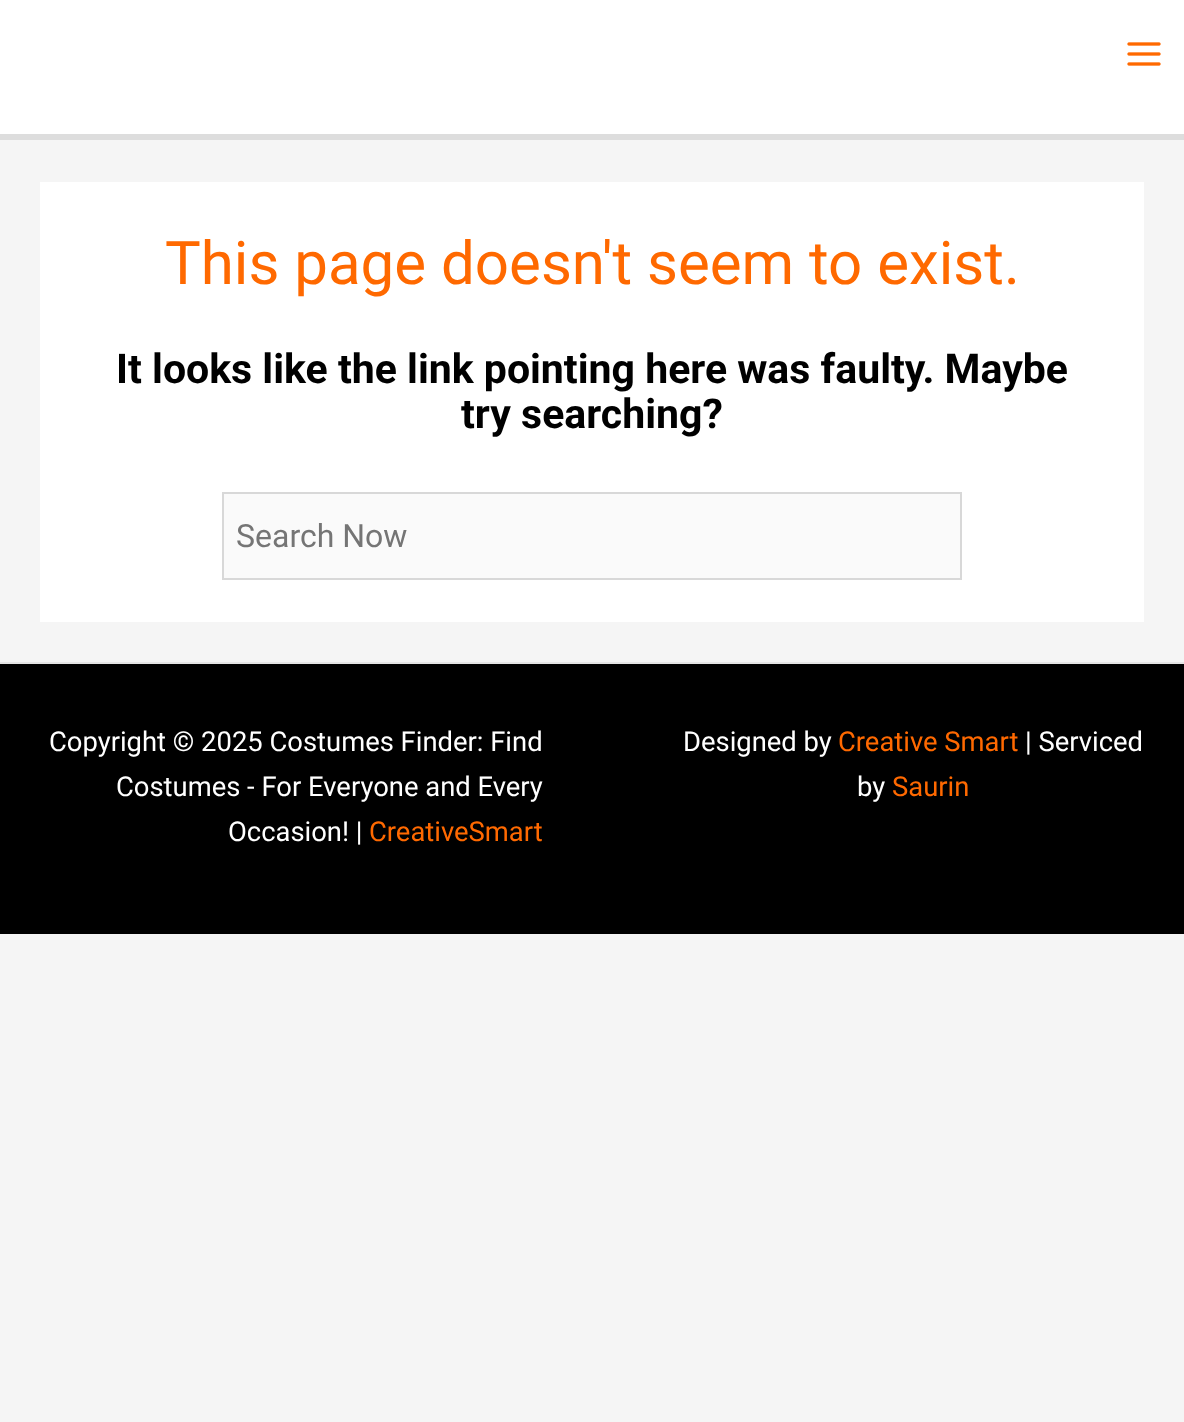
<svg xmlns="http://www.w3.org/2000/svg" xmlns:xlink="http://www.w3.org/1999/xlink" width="1184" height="1422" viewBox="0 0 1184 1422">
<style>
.cls-1{font:60px Roboto;fill:#ff6900}
.cls-2{font:bold 41px Roboto;fill:#000000}
.cls-3{font:32px Roboto;fill:#757575}
.cls-4{font:27.4px Roboto;fill:#ffffff}
.cls-5{font:27.4px Roboto;fill:#ff6900}
</style>
<rect width="100%" height="100%" fill="#f5f5f5"/>
<rect fill="#ffffff" x="0" y="0" width="1184" height="134"/>
<rect fill="#dddddd" x="0" y="134" width="1184" height="6"/>
<image xlink:href="image0.png" x="1127" y="42" width="34" height="24"/>
<rect fill="#ffffff" x="40" y="182" width="1104" height="440"/>
<rect fill="#fafafa" stroke="#d8d8d8" stroke-width="2" x="223" y="493" width="738" height="86"/>
<rect fill="#000000" x="0" y="664" width="1184" height="270"/>
<rect fill="#e5e5e5" x="0" y="662" width="1184" height="2"/>
<text class="cls-1" x="165" y="284">This page doesn't seem to exist.</text>
<text class="cls-2" x="116" y="383">It looks like the link pointing here was faulty. Maybe</text>
<text class="cls-2" x="461" y="428">try searching?</text>
<text class="cls-3" x="236" y="547">Search Now</text>
<text class="cls-4" x="49" y="751">Copyright © 2025 Costumes Finder: Find</text>
<text class="cls-4" x="116" y="796">Costumes - For Everyone and Every</text>
<text class="cls-4" x="228" y="841">Occasion! |</text>
<text class="cls-5" x="369" y="841">CreativeSmart</text>
<text class="cls-4" x="683" y="751">Designed by</text>
<text class="cls-5" x="838" y="751">Creative Smart</text>
<text class="cls-4" x="1025" y="751">| Serviced</text>
<text class="cls-4" x="857" y="796">by</text>
<text class="cls-5" x="892" y="796">Saurin</text>
</svg>
